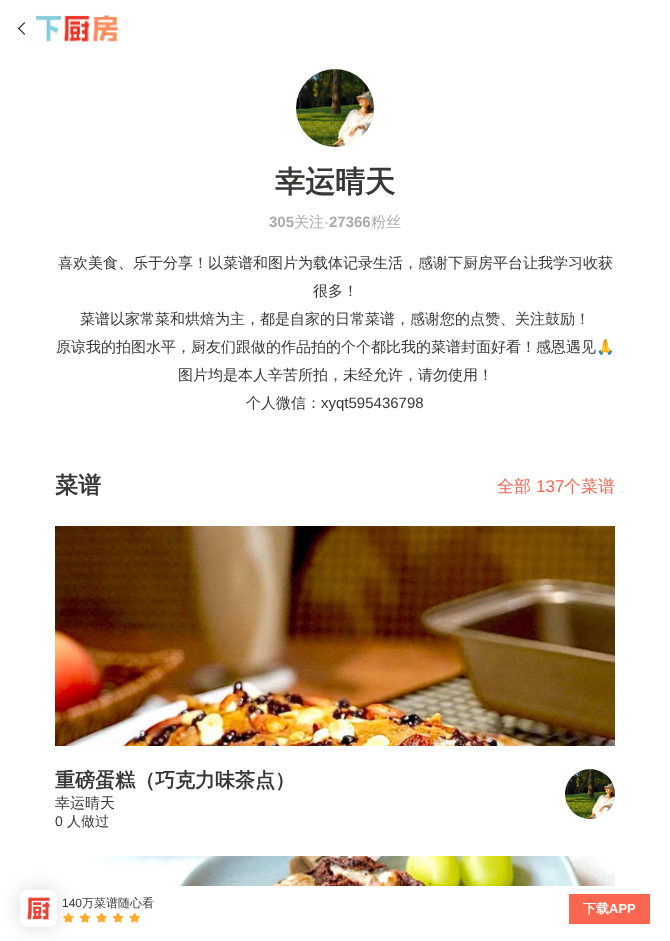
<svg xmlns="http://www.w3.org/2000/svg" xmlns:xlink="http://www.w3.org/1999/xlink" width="670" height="941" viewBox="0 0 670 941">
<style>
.cls-1{font:bold 30px WenQuanYi Zen Hei;fill:#383835}
.cls-2{font:bold 15px Liberation Sans;fill:#aaaaaa}
.cls-3{font:500 15px WenQuanYi Zen Hei;fill:#aaaaaa}
.cls-4{font:15px Liberation Sans;fill:#aaaaaa}
.cls-5{font:500 15px WenQuanYi Zen Hei;fill:#383835}
.cls-6{font:15px Noto Color Emoji;fill:#383835}
.cls-7{font:15px Liberation Sans;fill:#383835}
.cls-8{font:bold 23px WenQuanYi Zen Hei;fill:#383835}
.cls-9{font:500 17px WenQuanYi Zen Hei;fill:#fa6650}
.cls-10{font:17px Liberation Sans;fill:#fa6650}
.cls-11{font:bold 20px WenQuanYi Zen Hei;fill:#383835}
.cls-12{font:14px Liberation Sans;fill:#383835}
.cls-13{font:500 14px WenQuanYi Zen Hei;fill:#383835}
.cls-14{font:12px Liberation Sans;fill:#383835}
.cls-15{font:500 12px WenQuanYi Zen Hei;fill:#383835}
.cls-16{font:bold 13px WenQuanYi Zen Hei;fill:#ffffff}
.cls-17{font:bold 13px Liberation Sans;fill:#ffffff}
</style>
<defs>
<clipPath id="clip1"><path d="M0 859H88V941H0ZM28 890H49C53.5 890 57 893.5 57 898V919C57 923.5 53.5 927 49 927H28C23.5 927 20 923.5 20 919V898C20 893.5 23.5 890 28 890Z" clip-rule="evenodd"/></clipPath>
</defs>
<rect width="100%" height="100%" fill="#ffffff"/>
<path fill="#191919" d="M18 28.5L24.5 22L25 23L19 29Z"/>
<path fill="#191919" d="M18 28.5L19 28L25 34L24.5 35Z"/>
<image xlink:href="image0.png" x="36" y="15" width="83" height="27"/>
<image xlink:href="image1.png" x="296" y="69" width="78" height="78"/>
<image xlink:href="image2.png" x="55" y="526" width="560" height="220"/>
<image xlink:href="image3.png" x="565" y="769" width="50" height="50"/>
<image xlink:href="image4.png" x="91" y="856" width="524" height="30"/>
<g clip-path="url(#clip1)">
<rect fill="#dadada" filter="blur(10px)" x="20" y="890" width="37" height="37" rx="8"/>
</g>
<image xlink:href="image5.png" x="27" y="897" width="23" height="23"/>
<image xlink:href="image6.png" x="62" y="912" width="79" height="11"/>
<rect fill="#fa6650" x="569" y="894" width="81" height="30"/>
<text class="cls-1" x="275" y="192">幸运晴天</text>
<text class="cls-2" x="269" y="227">305</text>
<text class="cls-3" x="294" y="227">关注</text>
<text class="cls-4" x="324" y="227">·</text>
<text class="cls-2" x="329" y="227">27366</text>
<text class="cls-3" x="371" y="227">粉丝</text>
<text class="cls-5" x="58" y="268">喜欢美食、乐于分享！以菜谱和图片为载体记录生活，感谢下厨房平台让我学习收获</text>
<text class="cls-5" x="313" y="296">很多！</text>
<text class="cls-5" x="80" y="324">菜谱以家常菜和烘焙为主，都是自家的日常菜谱，感谢您的点赞、关注鼓励！</text>
<text class="cls-5" x="56" y="352">原谅我的拍图水平，厨友们跟做的作品拍的个个都比我的菜谱封面好看！感恩遇见</text>
<text class="cls-6" x="596" y="352">🙏</text>
<text class="cls-5" x="178" y="380">图片均是本人辛苦所拍，未经允许，请勿使用！</text>
<text class="cls-5" x="246" y="408">个人微信：</text>
<text class="cls-7" x="321" y="408">xyqt595436798</text>
<text class="cls-8" x="55" y="493">菜谱</text>
<text class="cls-9" x="497" y="492">全部</text>
<text class="cls-10" x="536" y="492">137</text>
<text class="cls-9" x="564" y="492">个菜谱</text>
<text class="cls-11" x="55" y="787">重磅蛋糕（巧克力味茶点）</text>
<text class="cls-5" x="55" y="808">幸运晴天</text>
<text class="cls-12" x="55" y="826">0</text>
<text class="cls-13" x="67" y="826">人做过</text>
<text class="cls-14" x="62" y="907">140</text>
<text class="cls-15" x="82" y="907">万菜谱随心看</text>
<text class="cls-16" x="583" y="913">下载</text>
<text class="cls-17" x="609" y="913">APP</text>
</svg>
